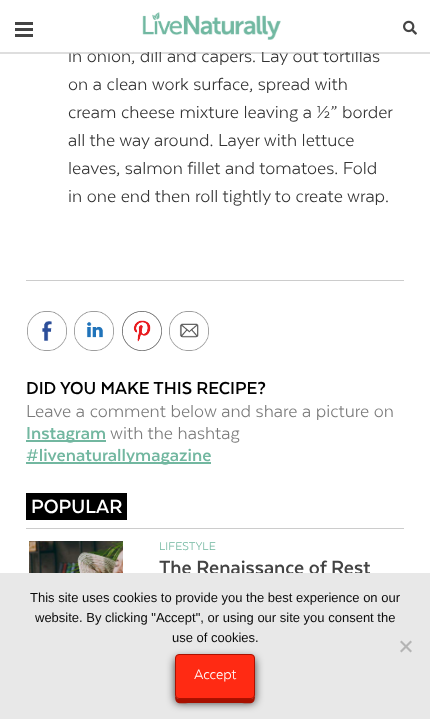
<svg xmlns="http://www.w3.org/2000/svg" xmlns:xlink="http://www.w3.org/1999/xlink" width="430" height="719" viewBox="0 0 430 719">
<style>
.cls-1{font:20px 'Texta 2';fill:#333333}
.cls-2{font:20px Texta;fill:#000000}
.cls-3{font:20px 'Texta 2';fill:#7a7a7a}
.cls-4{font:20px Texta;fill:#72b7a0}
.cls-5{font:22px Texta;fill:#ffffff}
.cls-6{font:13px 'Texta 2';fill:#72b7a0}
.cls-7{font:22px Texta;fill:#444444}
.cls-8{font:13px Liberation Sans;fill:#0a0a0a}
.cls-9{font:16px 'Texta 2';fill:#ffffff}
</style>
<rect width="100%" height="100%" fill="#ffffff"/>
<rect fill="#000000" fill-opacity="0.13" x="0" y="52" width="430" height="2"/>
<rect fill="#444444" x="15" y="22" width="18" height="3"/>
<rect fill="#444444" x="15" y="28" width="18" height="3"/>
<rect fill="#444444" x="15" y="34" width="18" height="3"/>
<image xlink:href="image0.png" x="142" y="12" width="139" height="28"/>
<image xlink:href="image1.png" x="403" y="20" width="14" height="15"/>
<rect fill="#cccccc" x="26" y="280" width="378" height="1"/>
<image xlink:href="image2.png" x="27" y="311" width="40" height="40"/>
<image xlink:href="image3.png" x="74" y="311" width="40" height="40"/>
<image xlink:href="image4.png" x="122" y="311" width="40" height="40"/>
<image xlink:href="image5.png" x="169" y="311" width="40" height="40"/>
<rect fill="#72b7a0" x="26" y="440" width="80" height="2"/>
<rect fill="#72b7a0" x="26" y="462" width="185" height="2"/>
<rect fill="#cccccc" x="26" y="528" width="378" height="1"/>
<rect fill="#000000" x="26" y="493" width="101" height="27"/>
<image xlink:href="image6.png" x="29" y="541" width="94" height="32"/>
<text class="cls-1" x="68" y="62">in onion, dill and capers. Lay out tortillas</text>
<rect fill="#ffffff" x="69" y="49" width="293" height="3"/>
<text class="cls-1"><tspan x="68" y="90">on a clean work surface, spread with</tspan><tspan x="68" y="118">cream cheese mixture leaving a ½” border</tspan><tspan x="68" y="146">all the way around. Layer with lettuce</tspan><tspan x="68" y="174">leaves, salmon fillet and tomatoes. Fold</tspan><tspan x="68" y="202">in one end then roll tightly to create wrap.</tspan></text>
<text class="cls-2" x="26" y="394">DID YOU MAKE THIS RECIPE?</text>
<text class="cls-3" x="26" y="417">Leave a comment below and share a picture on</text>
<text class="cls-4" x="26" y="439">Instagram</text>
<text class="cls-3" x="110" y="439">with the hashtag</text>
<text class="cls-4" x="26" y="461">#livenaturallymagazine</text>
<text class="cls-5" x="31" y="513">POPULAR</text>
<text class="cls-6" x="159" y="550">LIFESTYLE</text>
<text class="cls-7" x="159" y="574">The Renaissance of Rest</text>
<rect fill="#e8e8e8" x="0" y="573" width="430" height="146"/>
<text class="cls-8" x="30" y="602">This site uses cookies to provide you the best experience on our</text>
<text class="cls-8" x="35" y="622">website. By clicking "Accept", or using our site you consent the</text>
<text class="cls-8" x="172" y="642">use of cookies.</text>
<path fill="#b4b4b4" d="M410.5 640.5L412 642L401.5 652.5L400 651Z"/>
<path fill="#b4b4b4" d="M400 642L401.5 640.5L412 651L410.5 652.5Z"/>
<rect fill="#000000" fill-opacity="0.75" filter="blur(4.5px)" x="175" y="658" width="80" height="45" rx="4"/>
<path fill="#a71000" d="M175 695C175 706 179 703 191 703H239C251 703 255 706 255 695C255 697 253 699 251 699H179C177 699 175 697 175 695Z"/>
<rect fill="#ff2a13" stroke="#ac1100" x="175.5" y="654.5" width="79" height="44" rx="3.5"/>
<text class="cls-9" x="194" y="679">Accept</text>
</svg>
